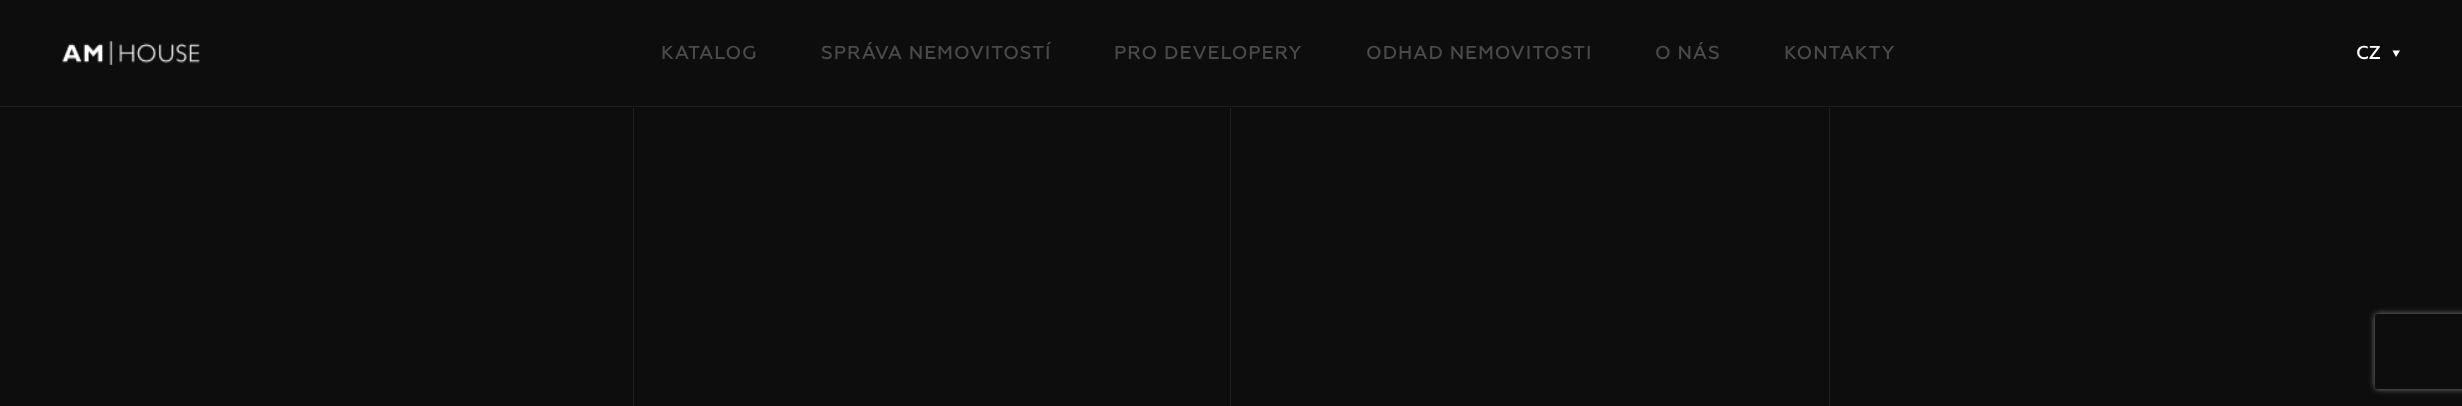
<svg xmlns="http://www.w3.org/2000/svg" xmlns:xlink="http://www.w3.org/1999/xlink" width="2462" height="406" viewBox="0 0 2462 406">
<style>
.cls-1{font:500 18.75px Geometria;letter-spacing:0.9px;fill:#4a4a4a}
.cls-2{font:500 18.75px Geometria;fill:#ffffff}
</style>
<defs>
<clipPath id="clip1"><path d="M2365 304H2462V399H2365ZM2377.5 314H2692.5C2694 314 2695 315 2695 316.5V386.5C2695 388 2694 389 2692.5 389H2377.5C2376 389 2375 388 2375 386.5V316.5C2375 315 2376 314 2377.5 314Z" clip-rule="evenodd"/></clipPath>
</defs>
<rect width="100%" height="100%" fill="#0d0d0d"/>
<rect fill="#1d1d1d" x="0" y="106" width="2462" height="1"/>
<image xlink:href="image0.png" x="62" y="41" width="138" height="24"/>
<path fill="#ffffff" d="M2392.5 50.5H2400L2396 57Z"/>
<rect fill="#1f2025" x="1829" y="108" width="1" height="298"/>
<rect fill="#1f2025" x="633" y="108" width="1" height="298"/>
<rect fill="#1f2025" x="1230" y="108" width="1" height="298"/>
<g clip-path="url(#clip1)">
<rect fill="#808080" filter="blur(3px)" x="2375" y="314" width="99" height="75" rx="2.5"/>
</g>
<text class="cls-1" x="661" y="59">KATALOG</text>
<text class="cls-1" x="821" y="59">SPRÁVA NEMOVITOSTÍ</text>
<text class="cls-1" x="1114" y="59">PRO DEVELOPERY</text>
<text class="cls-1" x="1366" y="59">ODHAD NEMOVITOSTI</text>
<text class="cls-1" x="1655" y="59">O NÁS</text>
<text class="cls-1" x="1784" y="59">KONTAKTY</text>
<text class="cls-2" x="2356" y="59">CZ</text>
</svg>
